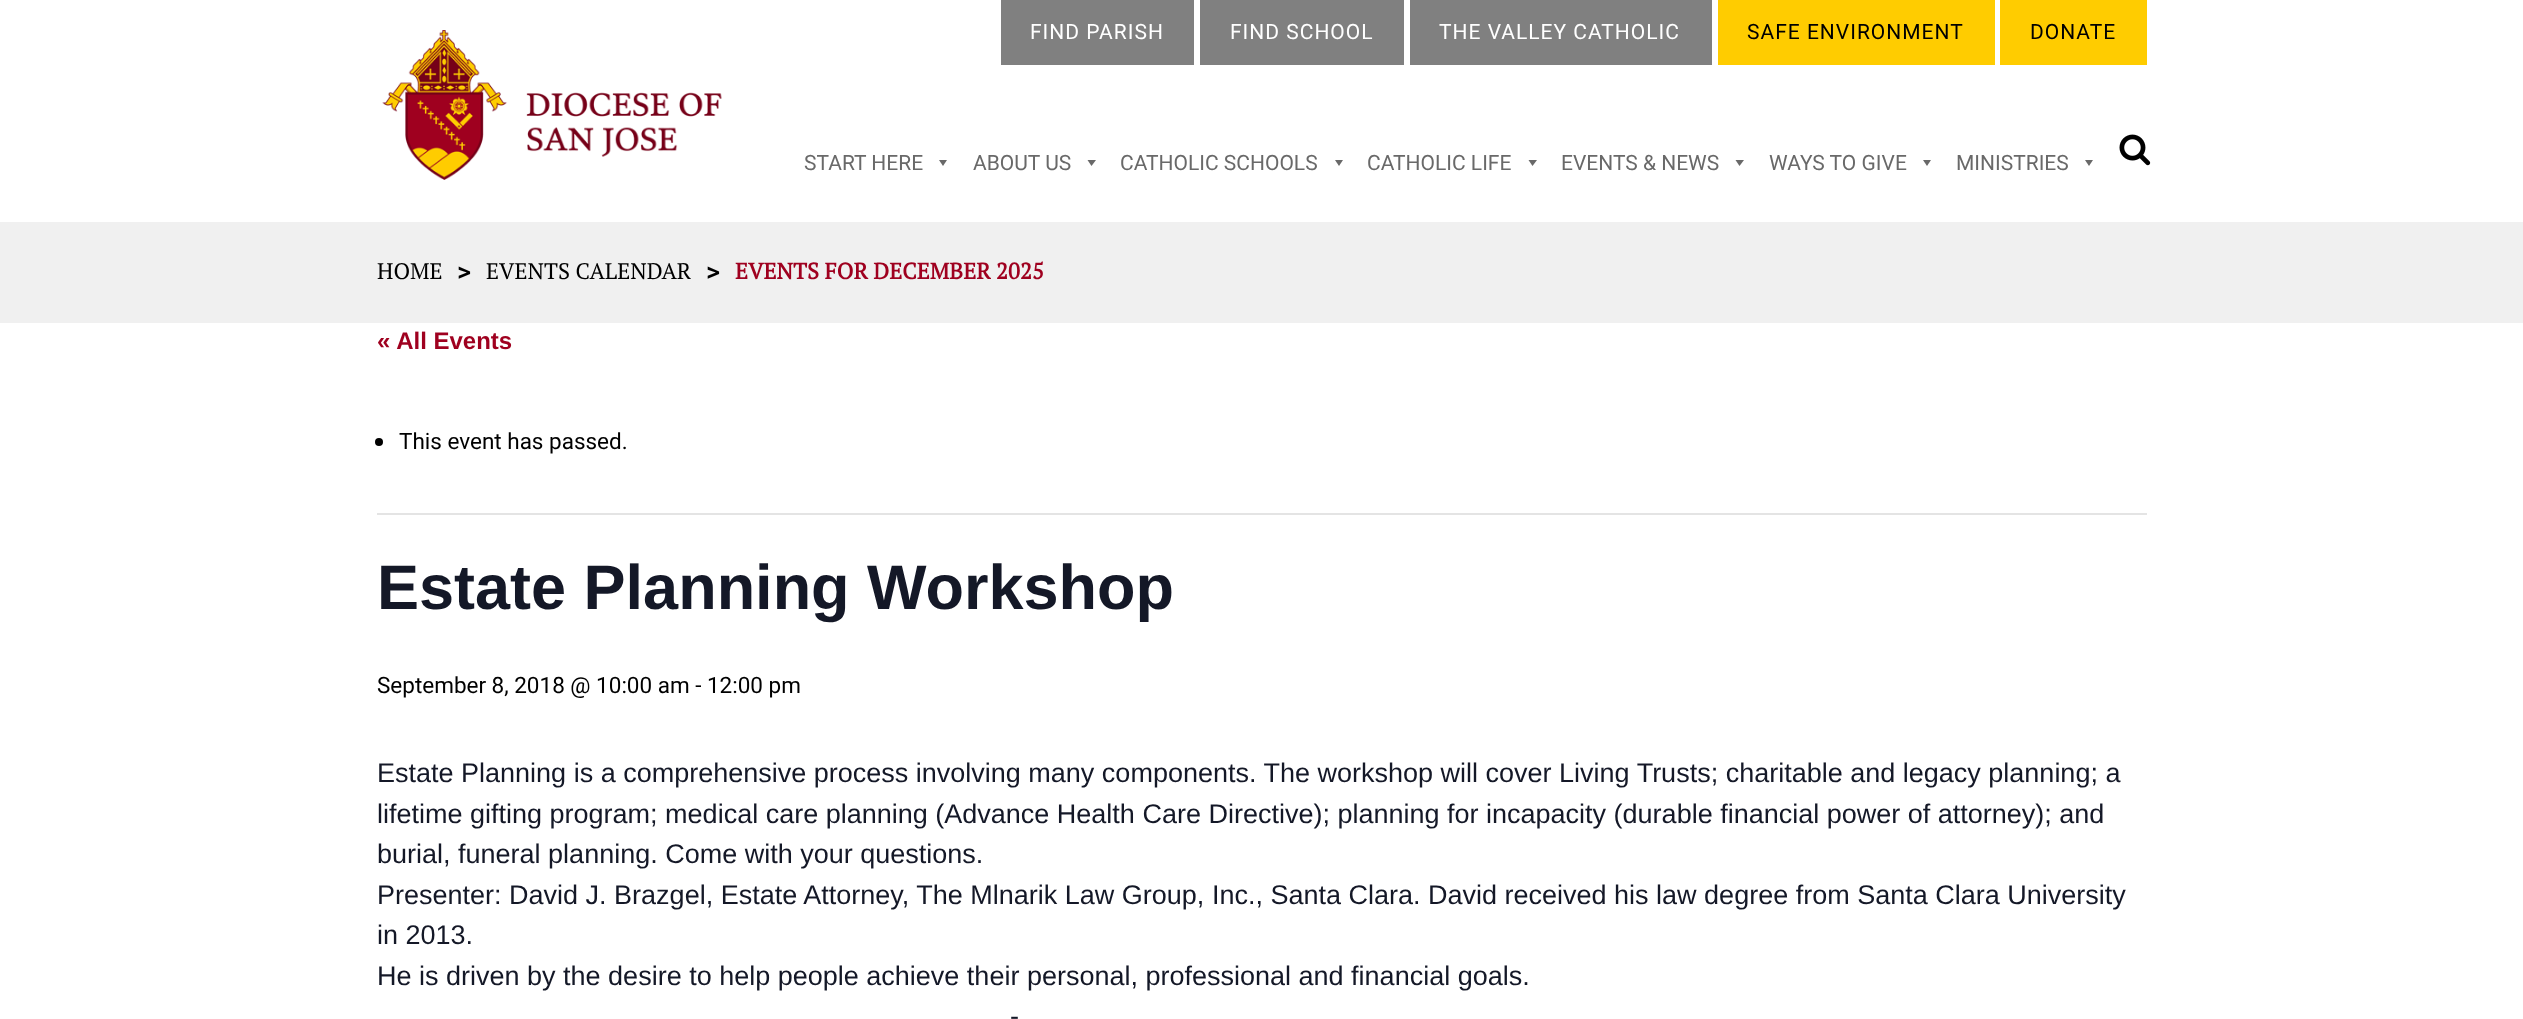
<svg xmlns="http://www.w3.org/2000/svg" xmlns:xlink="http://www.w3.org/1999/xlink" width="2523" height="1019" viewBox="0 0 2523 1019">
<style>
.cls-1{font:21px Roboto;letter-spacing:1px;fill:#ffffff}
.cls-2{font:21px Roboto;letter-spacing:1px;fill:#000000}
.cls-3{font:21px Roboto;fill:#696969}
.cls-4{font:22.5px PT Serif;fill:#000000}
.cls-5{font:500 27px Roboto;fill:#000000}
.cls-6{font:bold 22.5px PT Serif;fill:#9f001f}
.cls-7{font:bold 24px Liberation Sans;fill:#9f001f}
.cls-8{font:22.5px Roboto;fill:#000000}
.cls-9{font:bold 63px Liberation Sans;fill:#141827}
.cls-10{font:27px Liberation Sans;fill:#141827}
</style>
<rect width="100%" height="100%" fill="#ffffff"/>
<image xlink:href="image0.png" x="382" y="30" width="340" height="150"/>
<rect fill="#808080" x="1001" y="0" width="193" height="65"/>
<rect fill="#808080" x="1200" y="0" width="204" height="65"/>
<rect fill="#808080" x="1410" y="0" width="302" height="65"/>
<rect fill="#ffcc00" x="1718" y="0" width="277" height="65"/>
<rect fill="#ffcc00" x="2000" y="0" width="147" height="65"/>
<path fill="#696969" d="M947 160L943 166L939 160Z"/>
<path fill="#696969" d="M1096 160L1091.5 166L1087.5 160Z"/>
<path fill="#696969" d="M1343 160L1339 166L1335 160Z"/>
<path fill="#696969" d="M1537 160L1532.5 166L1528.5 160Z"/>
<path fill="#696969" d="M1744 160L1739.5 166L1735.5 160Z"/>
<path fill="#696969" d="M1931 160L1927 166L1923 160Z"/>
<path fill="#696969" d="M2093 160L2089 166L2085 160Z"/>
<image xlink:href="image1.png" x="2119" y="134" width="32" height="32"/>
<rect fill="#f0f0f0" x="0" y="222" width="2523" height="101"/>
<rect fill="#e4e4e4" x="377" y="513" width="1770" height="2"/>
<circle fill="#000000" cx="379" cy="442" r="4"/>
<text class="cls-1" x="1030" y="39">FIND PARISH</text>
<text class="cls-1" x="1230" y="39">FIND SCHOOL</text>
<text class="cls-1" x="1439" y="39">THE VALLEY CATHOLIC</text>
<text class="cls-2" x="1747" y="39">SAFE ENVIRONMENT</text>
<text class="cls-2" x="2030" y="39">DONATE</text>
<text class="cls-3" x="804" y="170">START HERE</text>
<text class="cls-3" x="973" y="170">ABOUT US</text>
<text class="cls-3" x="1120" y="170">CATHOLIC SCHOOLS</text>
<text class="cls-3" x="1367" y="170">CATHOLIC LIFE</text>
<text class="cls-3" x="1561" y="170">EVENTS &amp; NEWS</text>
<text class="cls-3" x="1769" y="170">WAYS TO GIVE</text>
<text class="cls-3" x="1956" y="170">MINISTRIES</text>
<text class="cls-4" x="377" y="279">HOME</text>
<text class="cls-5" x="457" y="281">&gt;</text>
<text class="cls-4" x="486" y="279">EVENTS CALENDAR</text>
<text class="cls-5" x="706" y="281">&gt;</text>
<text class="cls-6" x="735" y="279">EVENTS FOR DECEMBER 2025</text>
<text class="cls-7" x="377" y="349">« All Events</text>
<text class="cls-8" x="399" y="449">This event has passed.</text>
<text class="cls-9" x="377" y="609">Estate Planning Workshop</text>
<text class="cls-8" x="377" y="693">September 8, 2018 @ 10:00 am - 12:00 pm</text>
<text class="cls-10"><tspan x="377" y="782">Estate Planning is a comprehensive process involving many components. The workshop will cover Living Trusts; charitable and legacy planning; a</tspan><tspan x="377" y="823">lifetime gifting program; medical care planning (Advance Health Care Directive); planning for incapacity (durable financial power of attorney); and</tspan><tspan x="377" y="863">burial, funeral planning. Come with your questions.</tspan><tspan x="377" y="904">Presenter: David J. Brazgel, Estate Attorney, The Mlnarik Law Group, Inc., Santa Clara. David received his law degree from Santa Clara University</tspan><tspan x="377" y="944">in 2013.</tspan><tspan x="377" y="985">He is driven by the desire to help people achieve their personal, professional and financial goals.</tspan></text>
<text class="cls-10" x="1010" y="1025">-</text>
</svg>
